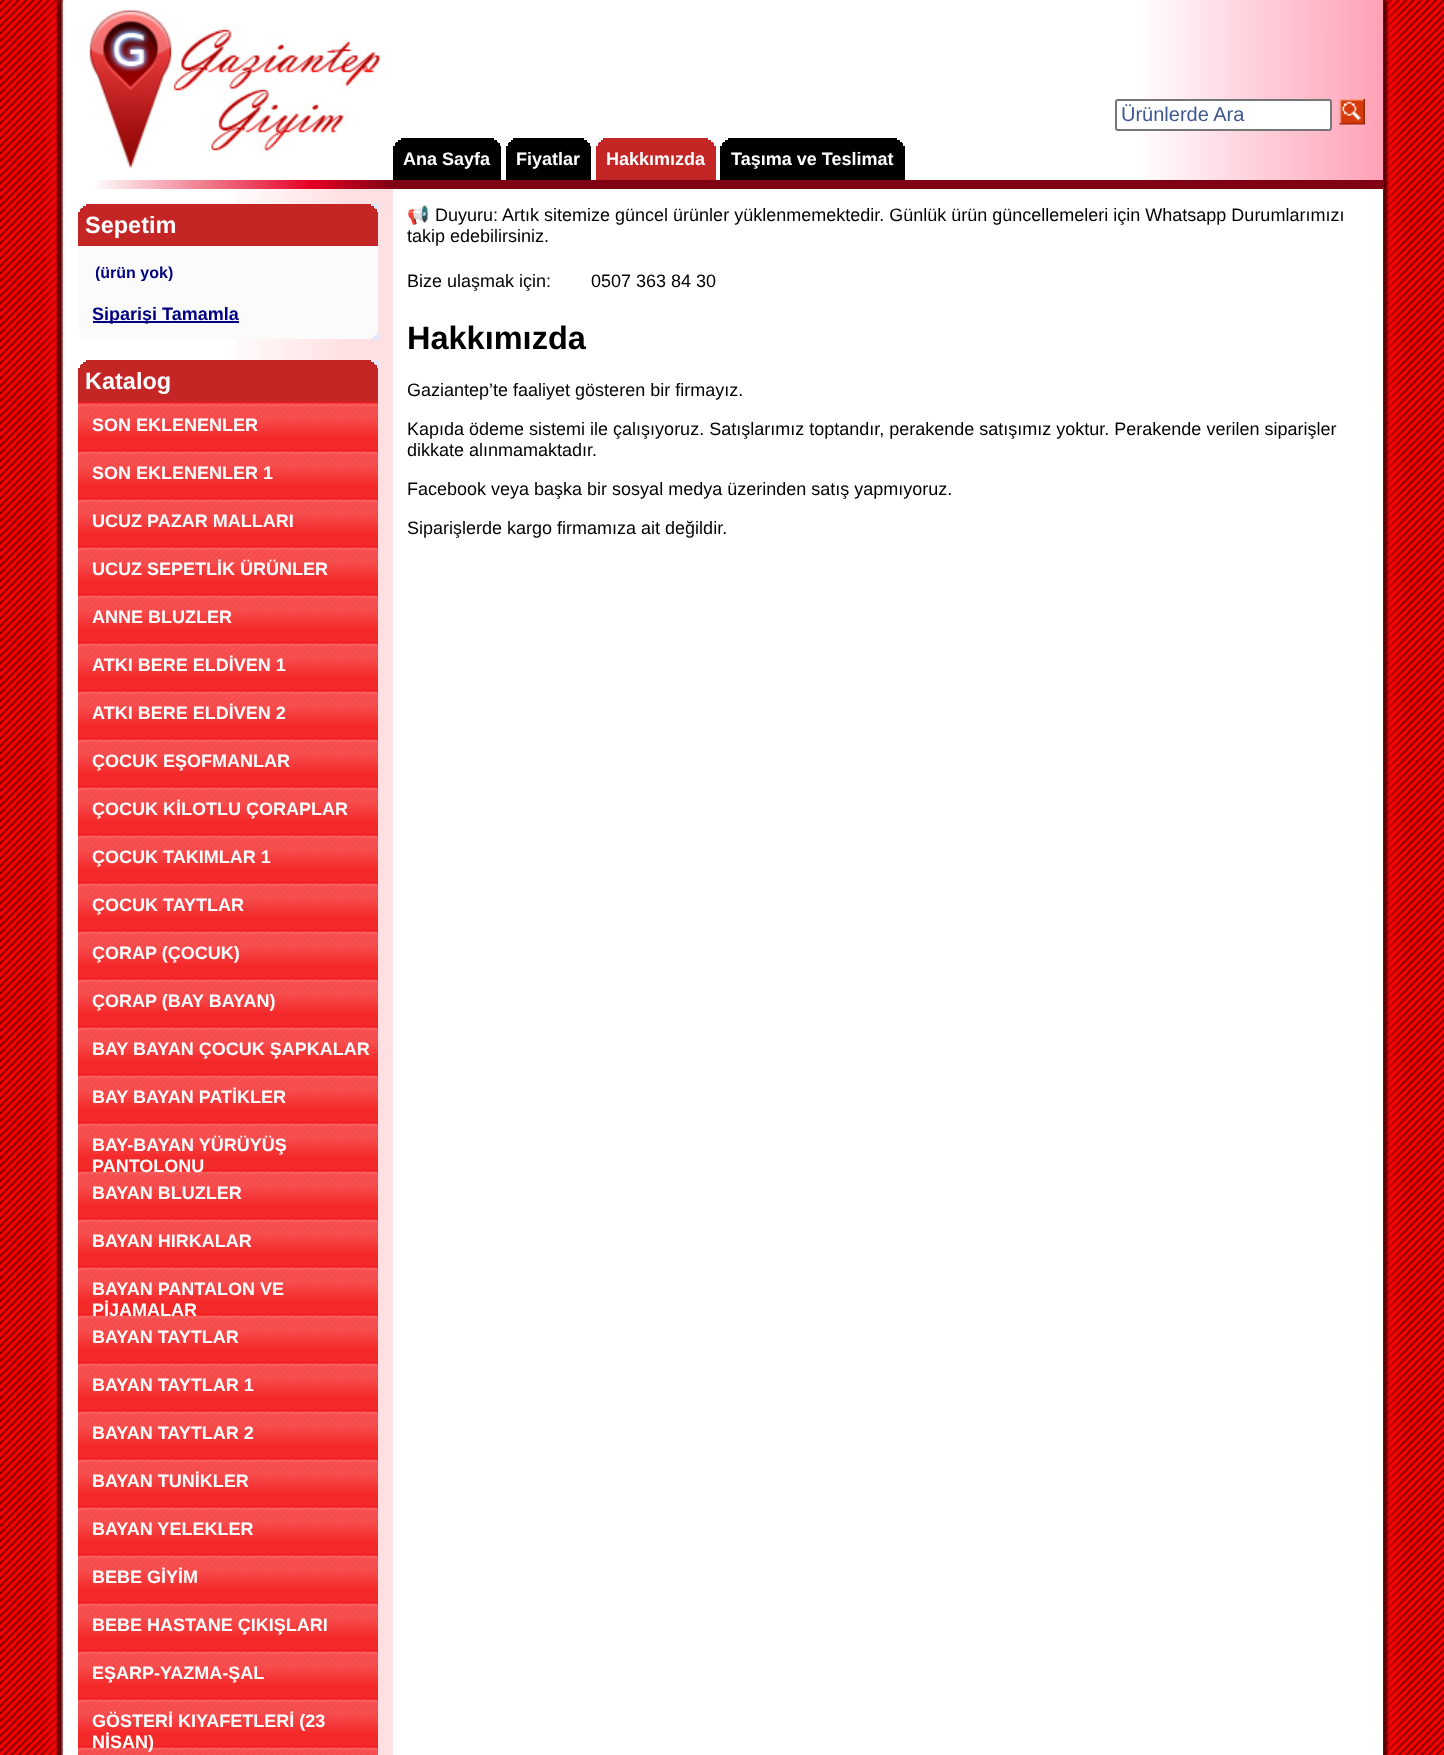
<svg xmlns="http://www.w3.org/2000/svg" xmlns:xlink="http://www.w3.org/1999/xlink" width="1444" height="1755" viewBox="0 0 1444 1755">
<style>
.cls-1{font:20px Liberation Sans;fill:#3e578f}
.cls-2{font:bold 18px Liberation Sans;fill:#ffffff}
.cls-3{font:bold 23.5px Liberation Sans;fill:#ffffff}
.cls-4{font:bold 16px Liberation Sans;fill:#000080}
.cls-5{font:bold 18px Liberation Sans;fill:#000080}
.cls-6{font:18px Noto Color Emoji;fill:#000000}
.cls-7{font:18px Liberation Sans;fill:#000000}
.cls-8{font:bold 32.5px Liberation Sans;fill:#000000}
</style>
<defs>
<clipPath id="clip1"><rect x="96" y="263" width="228" height="18"/></clipPath>
</defs>
<rect width="100%" height="100%" fill="#ffffff"/>
<image xlink:href="image0.png" x="0" y="0" width="1444" height="1755"/>
<rect fill="#ffffff" x="63" y="0" width="1320" height="1755"/>
<image xlink:href="image1.png" x="89" y="10" width="291" height="159"/>
<image xlink:href="image2.png" x="1144" y="0" width="239" height="180"/>
<rect fill="#ffffff" stroke="#767676" stroke-width="2" x="1116" y="100" width="215" height="30" rx="2"/>
<image xlink:href="image3.png" x="1339" y="99" width="26" height="26"/>
<rect fill="#000000" x="393" y="138" width="108" height="42"/>
<rect fill="#ffffff" x="494" y="138" width="7" height="2"/>
<rect fill="#ffffff" x="393" y="138" width="8" height="2"/>
<rect fill="#ffffff" x="497" y="140" width="5" height="2"/>
<rect fill="#ffffff" x="393" y="140" width="5" height="2"/>
<rect fill="#ffffff" x="498" y="142" width="3" height="1"/>
<rect fill="#ffffff" x="393" y="142" width="3" height="1"/>
<rect fill="#ffffff" x="500" y="143" width="1" height="3"/>
<rect fill="#ffffff" x="393" y="143" width="2" height="3"/>
<rect fill="#000000" x="506" y="138" width="85" height="42"/>
<rect fill="#ffffff" x="584" y="138" width="7" height="2"/>
<rect fill="#ffffff" x="506" y="138" width="7" height="2"/>
<rect fill="#ffffff" x="587" y="140" width="5" height="2"/>
<rect fill="#ffffff" x="506" y="140" width="5" height="2"/>
<rect fill="#ffffff" x="588" y="142" width="3" height="1"/>
<rect fill="#ffffff" x="506" y="142" width="3" height="1"/>
<rect fill="#ffffff" x="590" y="143" width="1" height="3"/>
<rect fill="#ffffff" x="506" y="143" width="2" height="3"/>
<rect fill="#c42525" x="596" y="138" width="120" height="42"/>
<rect fill="#ffffff" x="708" y="138" width="8" height="2"/>
<rect fill="#ffffff" x="596" y="138" width="7" height="2"/>
<rect fill="#ffffff" x="711" y="140" width="5" height="2"/>
<rect fill="#ffffff" x="596" y="140" width="5" height="2"/>
<rect fill="#ffffff" x="713" y="142" width="3" height="1"/>
<rect fill="#ffffff" x="596" y="142" width="3" height="1"/>
<rect fill="#ffffff" x="714" y="143" width="2" height="3"/>
<rect fill="#ffffff" x="596" y="143" width="2" height="3"/>
<rect fill="#000000" x="720" y="138" width="185" height="42"/>
<rect fill="#ffffff" x="897" y="138" width="8" height="2"/>
<rect fill="#ffffff" x="720" y="138" width="8" height="2"/>
<rect fill="#ffffff" x="900" y="140" width="5" height="2"/>
<rect fill="#ffffff" x="720" y="140" width="5" height="2"/>
<rect fill="#ffffff" x="902" y="142" width="3" height="1"/>
<rect fill="#ffffff" x="720" y="142" width="3" height="1"/>
<rect fill="#ffffff" x="903" y="143" width="2" height="3"/>
<rect fill="#ffffff" x="720" y="143" width="2" height="3"/>
<image xlink:href="image4.png" x="96" y="180" width="297" height="9"/>
<rect fill="#800014" x="393" y="180" width="990" height="9"/>
<image xlink:href="image5.png" x="236" y="189" width="157" height="1566"/>
<rect fill="#c42525" x="78" y="204" width="300" height="42"/>
<rect fill="#ffffff" x="78" y="204" width="8" height="2"/>
<rect fill="#ffffff" x="78" y="206" width="5" height="2"/>
<rect fill="#ffffff" x="78" y="208" width="3" height="1"/>
<rect fill="#ffffff" x="78" y="209" width="2" height="3"/>
<rect fill="#e0e7ff" x="371" y="204" width="7" height="2"/>
<rect fill="#e0e7ff" x="374" y="206" width="5" height="2"/>
<rect fill="#e0e7ff" x="375" y="208" width="3" height="1"/>
<rect fill="#e0e7ff" x="377" y="209" width="2" height="3"/>
<rect fill="#fbfbfb" x="78" y="246" width="300" height="93"/>
<rect fill="#000080" x="93" y="321" width="146" height="2"/>
<rect fill="#ffffff" x="78" y="332" width="2" height="3"/>
<rect fill="#ffffff" x="78" y="335" width="3" height="1"/>
<rect fill="#ffffff" x="78" y="336" width="5" height="2"/>
<rect fill="#ffffff" x="78" y="338" width="8" height="1"/>
<rect fill="#e0e7ff" x="377" y="332" width="2" height="3"/>
<rect fill="#e0e7ff" x="375" y="335" width="3" height="1"/>
<rect fill="#e0e7ff" x="374" y="336" width="5" height="2"/>
<rect fill="#e0e7ff" x="371" y="338" width="7" height="2"/>
<rect fill="#c42525" x="78" y="360" width="300" height="42"/>
<rect fill="#ffffff" x="78" y="360" width="8" height="2"/>
<rect fill="#ffffff" x="78" y="362" width="5" height="2"/>
<rect fill="#ffffff" x="78" y="364" width="3" height="1"/>
<rect fill="#ffffff" x="78" y="365" width="2" height="3"/>
<rect fill="#e0e7ff" x="371" y="360" width="7" height="2"/>
<rect fill="#e0e7ff" x="374" y="362" width="5" height="2"/>
<rect fill="#e0e7ff" x="375" y="364" width="3" height="1"/>
<rect fill="#e0e7ff" x="377" y="365" width="2" height="3"/>
<image xlink:href="image6.png" x="78" y="402" width="300" height="48"/>
<image xlink:href="image6.png" x="78" y="450" width="300" height="48"/>
<image xlink:href="image6.png" x="78" y="498" width="300" height="48"/>
<image xlink:href="image6.png" x="78" y="546" width="300" height="48"/>
<image xlink:href="image6.png" x="78" y="594" width="300" height="48"/>
<image xlink:href="image6.png" x="78" y="642" width="300" height="48"/>
<image xlink:href="image6.png" x="78" y="690" width="300" height="48"/>
<image xlink:href="image6.png" x="78" y="738" width="300" height="48"/>
<image xlink:href="image6.png" x="78" y="786" width="300" height="48"/>
<image xlink:href="image6.png" x="78" y="834" width="300" height="48"/>
<image xlink:href="image6.png" x="78" y="882" width="300" height="48"/>
<image xlink:href="image6.png" x="78" y="930" width="300" height="48"/>
<image xlink:href="image6.png" x="78" y="978" width="300" height="48"/>
<image xlink:href="image6.png" x="78" y="1026" width="300" height="48"/>
<image xlink:href="image6.png" x="78" y="1074" width="300" height="48"/>
<image xlink:href="image6.png" x="78" y="1122" width="300" height="48"/>
<image xlink:href="image6.png" x="78" y="1170" width="300" height="48"/>
<image xlink:href="image6.png" x="78" y="1218" width="300" height="48"/>
<image xlink:href="image6.png" x="78" y="1266" width="300" height="48"/>
<image xlink:href="image6.png" x="78" y="1314" width="300" height="48"/>
<image xlink:href="image6.png" x="78" y="1362" width="300" height="48"/>
<image xlink:href="image6.png" x="78" y="1410" width="300" height="48"/>
<image xlink:href="image6.png" x="78" y="1458" width="300" height="48"/>
<image xlink:href="image6.png" x="78" y="1506" width="300" height="48"/>
<image xlink:href="image6.png" x="78" y="1554" width="300" height="48"/>
<image xlink:href="image6.png" x="78" y="1602" width="300" height="48"/>
<image xlink:href="image6.png" x="78" y="1650" width="300" height="48"/>
<image xlink:href="image6.png" x="78" y="1698" width="300" height="48"/>
<image xlink:href="image7.png" x="78" y="1746" width="300" height="9"/>
<text class="cls-1" x="1121" y="121">Ürünlerde Ara</text>
<text class="cls-2" x="403" y="165">Ana Sayfa</text>
<text class="cls-2" x="516" y="165">Fiyatlar</text>
<text class="cls-2" x="606" y="165">Hakkımızda</text>
<text class="cls-2" x="731" y="165">Taşıma ve Teslimat</text>
<text class="cls-3" x="85" y="233">Sepetim</text>
<g clip-path="url(#clip1)">
<text class="cls-4" x="95" y="278">(ürün yok)</text>
</g>
<text class="cls-5" x="92" y="320">Siparişi Tamamla</text>
<text class="cls-3" x="85" y="389">Katalog</text>
<text class="cls-2" x="92" y="431">SON EKLENENLER</text>
<text class="cls-2" x="92" y="479">SON EKLENENLER 1</text>
<text class="cls-2" x="92" y="527">UCUZ PAZAR MALLARI</text>
<text class="cls-2" x="92" y="575">UCUZ SEPETLİK ÜRÜNLER</text>
<text class="cls-2" x="92" y="623">ANNE BLUZLER</text>
<text class="cls-2" x="92" y="671">ATKI BERE ELDİVEN 1</text>
<text class="cls-2" x="92" y="719">ATKI BERE ELDİVEN 2</text>
<text class="cls-2" x="92" y="767">ÇOCUK EŞOFMANLAR</text>
<text class="cls-2" x="92" y="815">ÇOCUK KİLOTLU ÇORAPLAR</text>
<text class="cls-2" x="92" y="863">ÇOCUK TAKIMLAR 1</text>
<text class="cls-2" x="92" y="911">ÇOCUK TAYTLAR</text>
<text class="cls-2" x="92" y="959">ÇORAP (ÇOCUK)</text>
<text class="cls-2" x="92" y="1007">ÇORAP (BAY BAYAN)</text>
<text class="cls-2" x="92" y="1055">BAY BAYAN ÇOCUK ŞAPKALAR</text>
<text class="cls-2" x="92" y="1103">BAY BAYAN PATİKLER</text>
<text class="cls-2"><tspan x="92" y="1151">BAY-BAYAN YÜRÜYÜŞ</tspan><tspan x="92" y="1172">PANTOLONU</tspan><tspan x="92" y="1199">BAYAN BLUZLER</tspan></text>
<text class="cls-2" x="92" y="1247">BAYAN HIRKALAR</text>
<text class="cls-2"><tspan x="92" y="1295">BAYAN PANTALON VE</tspan><tspan x="92" y="1316">PİJAMALAR</tspan><tspan x="92" y="1343">BAYAN TAYTLAR</tspan></text>
<text class="cls-2" x="92" y="1391">BAYAN TAYTLAR 1</text>
<text class="cls-2" x="92" y="1439">BAYAN TAYTLAR 2</text>
<text class="cls-2" x="92" y="1487">BAYAN TUNİKLER</text>
<text class="cls-2" x="92" y="1535">BAYAN YELEKLER</text>
<text class="cls-2" x="92" y="1583">BEBE GİYİM</text>
<text class="cls-2" x="92" y="1631">BEBE HASTANE ÇIKIŞLARI</text>
<text class="cls-2" x="92" y="1679">EŞARP-YAZMA-ŞAL</text>
<text class="cls-2"><tspan x="92" y="1727">GÖSTERİ KIYAFETLERİ (23</tspan><tspan x="92" y="1748">NİSAN)</tspan></text>
<text class="cls-6" x="407" y="221">📢</text>
<text class="cls-7" x="435" y="221">Duyuru: Artık sitemize güncel ürünler yüklenmemektedir. Günlük ürün güncellemeleri için Whatsapp Durumlarımızı</text>
<text class="cls-7" x="407" y="242">takip edebilirsiniz.</text>
<text class="cls-7" x="407" y="287">Bize ulaşmak için:</text>
<text class="cls-7" x="591" y="287">0507 363 84 30</text>
<text class="cls-8" x="407" y="349">Hakkımızda</text>
<text class="cls-7" x="407" y="396">Gaziantep’te faaliyet gösteren bir firmayız.</text>
<text class="cls-7"><tspan x="407" y="435">Kapıda ödeme sistemi ile çalışıyoruz. Satışlarımız toptandır, perakende satışımız yoktur. Perakende verilen siparişler</tspan><tspan x="407" y="456">dikkate alınmamaktadır.</tspan></text>
<text class="cls-7" x="407" y="495">Facebook veya başka bir sosyal medya üzerinden satış yapmıyoruz.</text>
<text class="cls-7" x="407" y="534">Siparişlerde kargo firmamıza ait değildir.</text>
</svg>
